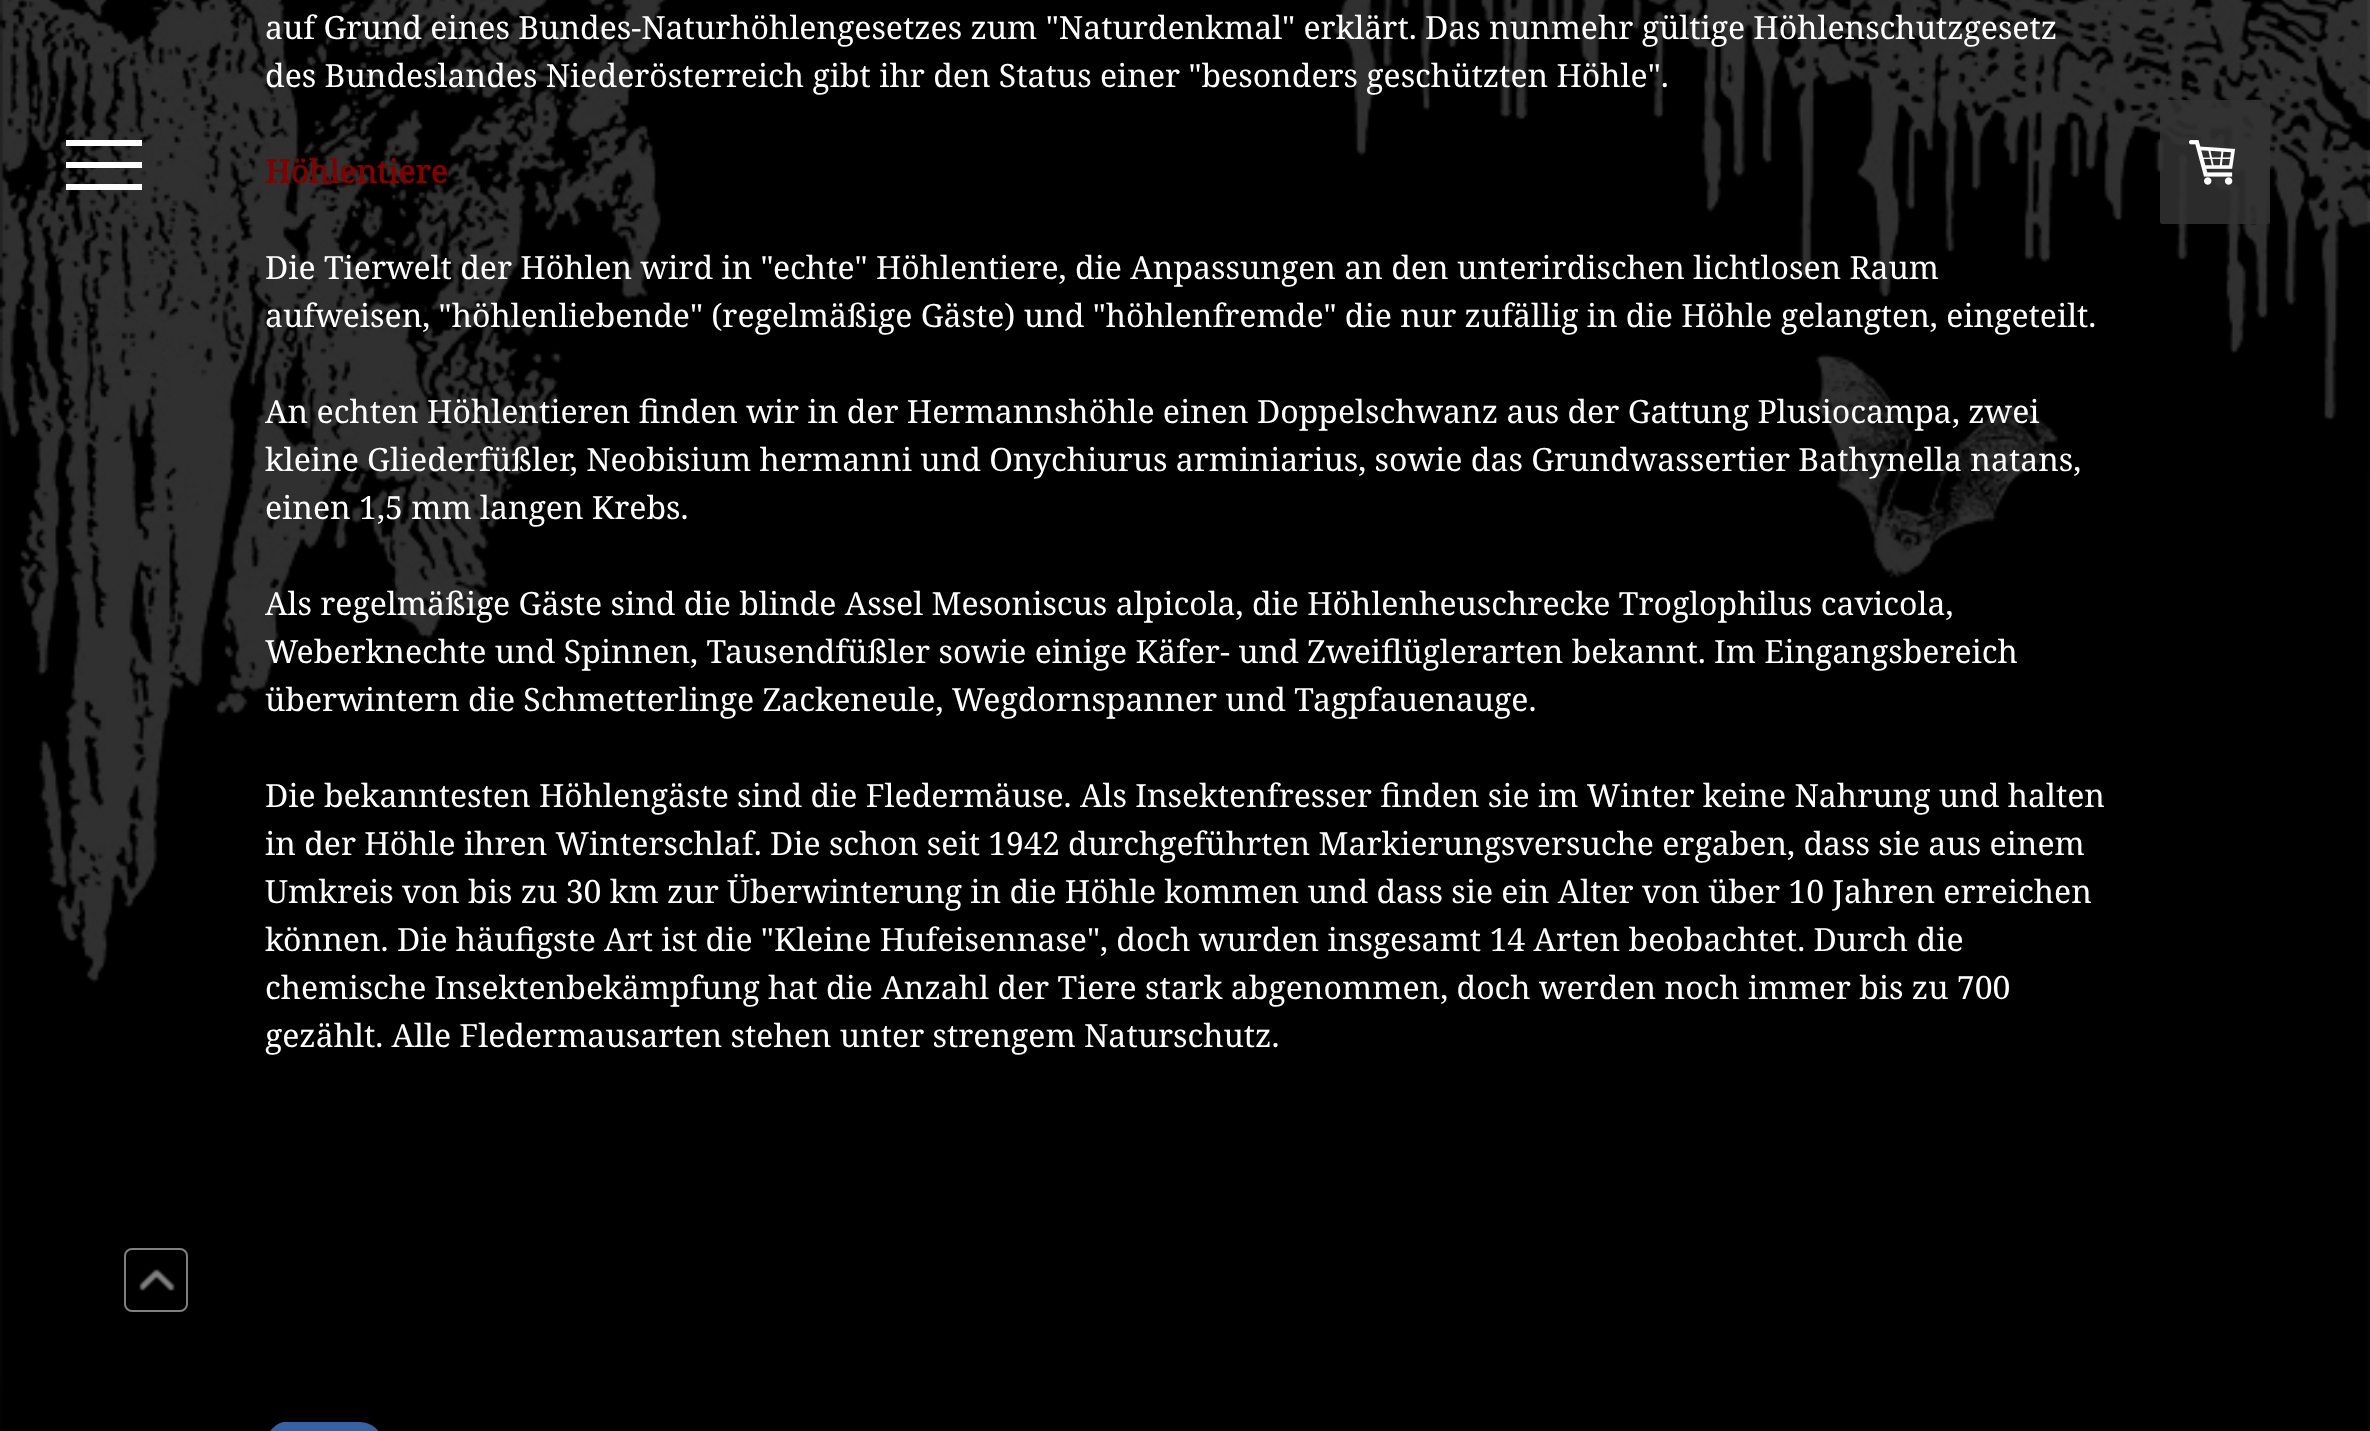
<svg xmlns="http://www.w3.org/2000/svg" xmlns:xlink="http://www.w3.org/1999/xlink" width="2370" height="1431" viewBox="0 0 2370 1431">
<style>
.cls-1{font:32px Noto Serif;fill:#ffffff}
.cls-2{font:bold 32px Noto Serif;fill:#800000}
</style>
<rect width="100%" height="100%" fill="#ffffff"/>
<image xlink:href="image0.png" x="0" y="0" width="2370" height="1431"/>
<rect fill="#ffffff" x="66" y="162" width="76" height="6"/>
<rect fill="#ffffff" x="66" y="140" width="76" height="6"/>
<rect fill="#ffffff" x="66" y="184" width="76" height="6"/>
<path fill="#38619f" d="M360 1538H283C275 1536 267 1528 266 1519V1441C267 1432 275 1424 283 1422H360C370 1422 380 1429 382 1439V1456V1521C380 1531 370 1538 360 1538Z"/>
<rect fill="#333333" fill-opacity="0.85" x="2160" y="100" width="110" height="124" rx="2"/>
<image xlink:href="image1.png" x="2188" y="140" width="48" height="45"/>
<rect fill="none" stroke="#808080" stroke-width="2" x="125" y="1249" width="62" height="62" rx="7"/>
<image xlink:href="image2.png" x="139" y="1269" width="36" height="22"/>
<text class="cls-1"><tspan x="265" y="39">auf Grund eines Bundes-Naturhöhlengesetzes zum "Naturdenkmal" erklärt. Das nunmehr gültige Höhlenschutzgesetz</tspan><tspan x="265" y="87">des Bundeslandes Niederösterreich gibt ihr den Status einer "besonders geschützten Höhle".</tspan></text>
<text class="cls-2" x="265" y="183">Höhlentiere</text>
<text class="cls-1"><tspan x="265" y="279">Die Tierwelt der Höhlen wird in "echte" Höhlentiere, die Anpassungen an den unterirdischen lichtlosen Raum</tspan><tspan x="265" y="327">aufweisen, "höhlenliebende" (regelmäßige Gäste) und "höhlenfremde" die nur zufällig in die Höhle gelangten, eingeteilt.</tspan></text>
<text class="cls-1"><tspan x="265" y="423">An echten Höhlentieren finden wir in der Hermannshöhle einen Doppelschwanz aus der Gattung Plusiocampa, zwei</tspan><tspan x="265" y="471">kleine Gliederfüßler, Neobisium hermanni und Onychiurus arminiarius, sowie das Grundwassertier Bathynella natans,</tspan><tspan x="265" y="519">einen 1,5 mm langen Krebs.</tspan></text>
<text class="cls-1"><tspan x="265" y="615">Als regelmäßige Gäste sind die blinde Assel Mesoniscus alpicola, die Höhlenheuschrecke Troglophilus cavicola,</tspan><tspan x="265" y="663">Weberknechte und Spinnen, Tausendfüßler sowie einige Käfer- und Zweiflüglerarten bekannt. Im Eingangsbereich</tspan><tspan x="265" y="711">überwintern die Schmetterlinge Zackeneule, Wegdornspanner und Tagpfauenauge.</tspan></text>
<text class="cls-1"><tspan x="265" y="807">Die bekanntesten Höhlengäste sind die Fledermäuse. Als Insektenfresser finden sie im Winter keine Nahrung und halten</tspan><tspan x="265" y="855">in der Höhle ihren Winterschlaf. Die schon seit 1942 durchgeführten Markierungsversuche ergaben, dass sie aus einem</tspan><tspan x="265" y="903">Umkreis von bis zu 30 km zur Überwinterung in die Höhle kommen und dass sie ein Alter von über 10 Jahren erreichen</tspan><tspan x="265" y="951">können. Die häufigste Art ist die "Kleine Hufeisennase", doch wurden insgesamt 14 Arten beobachtet. Durch die</tspan><tspan x="265" y="999">chemische Insektenbekämpfung hat die Anzahl der Tiere stark abgenommen, doch werden noch immer bis zu 700</tspan><tspan x="265" y="1047">gezählt. Alle Fledermausarten stehen unter strengem Naturschutz.</tspan></text>
</svg>
